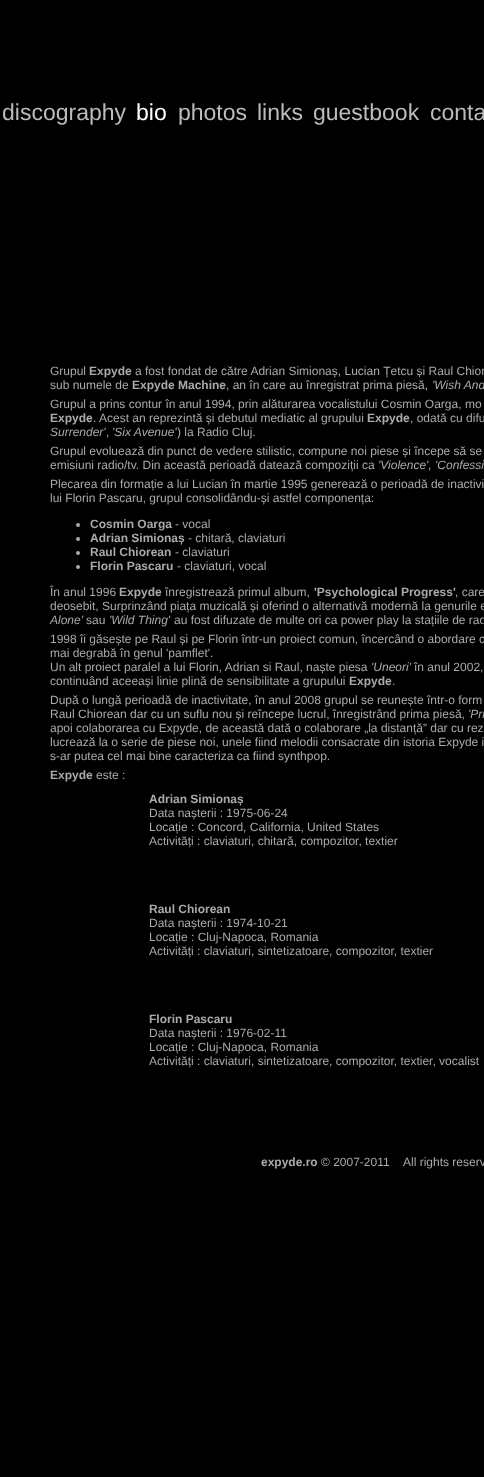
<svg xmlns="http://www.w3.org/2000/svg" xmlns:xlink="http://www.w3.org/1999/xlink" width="484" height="1477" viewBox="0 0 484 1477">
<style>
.cls-1{font:23px Liberation Sans;fill:#bcbcbc}
.cls-2{font:23px Liberation Sans;fill:#ffffff}
.cls-3{font:12px Liberation Sans;fill:#aaaaaa}
.cls-4{font:bold 12px Liberation Sans;fill:#aaaaaa}
.cls-5{font:italic 12px Liberation Sans;fill:#aaaaaa}
</style>
<rect width="100%" height="100%" fill="#000000"/>
<circle fill="#aaaaaa" cx="78" cy="525" r="2"/>
<circle fill="#aaaaaa" cx="78" cy="539" r="2"/>
<circle fill="#aaaaaa" cx="78" cy="553" r="2"/>
<circle fill="#aaaaaa" cx="78" cy="567" r="2"/>
<text class="cls-1" x="2" y="120">discography</text>
<text class="cls-2" x="136" y="120">bio</text>
<text class="cls-1" x="178" y="120">photos</text>
<text class="cls-1" x="257" y="120">links</text>
<text class="cls-1" x="313" y="120">guestbook</text>
<text class="cls-1" x="430" y="120">conta</text>
<text class="cls-3" x="50" y="375">Grupul</text>
<text class="cls-4" x="89" y="375">Expyde</text>
<text class="cls-3" x="135" y="375">a fost fondat de către Adrian Simionaș, Lucian Țetcu și Raul Chior</text>
<text class="cls-3" x="50" y="389">sub numele de</text>
<text class="cls-4" x="132" y="389">Expyde Machine</text>
<text class="cls-3" x="226" y="389">, an în care au înregistrat prima piesă,</text>
<text class="cls-5" x="432" y="389">'Wish And</text>
<text class="cls-3" x="50" y="408">Grupul a prins contur în anul 1994, prin alăturarea vocalistului Cosmin Oarga, mo</text>
<text class="cls-4" x="50" y="422">Expyde</text>
<text class="cls-3" x="93" y="422">. Acest an reprezintă și debutul mediatic al grupului</text>
<text class="cls-4" x="367" y="422">Expyde</text>
<text class="cls-3" x="410" y="422">, odată cu difu</text>
<text class="cls-5" x="50" y="436">Surrender'</text>
<text class="cls-3" x="106" y="436">,</text>
<text class="cls-5" x="112" y="436">'Six Avenue'</text>
<text class="cls-3" x="177" y="436">) la Radio Cluj.</text>
<text class="cls-3"><tspan x="50" y="455">Grupul evoluează din punct de vedere stilistic, compune noi piese și începe să se</tspan><tspan x="50" y="469">emisiuni radio/tv. Din această perioadă datează compoziții ca</tspan></text>
<text class="cls-5" x="378" y="469">'Violence'</text>
<text class="cls-3" x="428" y="469">,</text>
<text class="cls-5" x="435" y="469">'Confessi</text>
<text class="cls-3"><tspan x="50" y="488">Plecarea din formație a lui Lucian în martie 1995 generează o perioadă de inactivi</tspan><tspan x="50" y="502">lui Florin Pascaru, grupul consolidându-și astfel componența:</tspan></text>
<text class="cls-4" x="90" y="528">Cosmin Oarga</text>
<text class="cls-3" x="175" y="528">- vocal</text>
<text class="cls-4" x="90" y="542">Adrian Simionaș</text>
<text class="cls-3" x="188" y="542">- chitară, claviaturi</text>
<text class="cls-4" x="90" y="556">Raul Chiorean</text>
<text class="cls-3" x="175" y="556">- claviaturi</text>
<text class="cls-4" x="90" y="570">Florin Pascaru</text>
<text class="cls-3" x="177" y="570">- claviaturi, vocal</text>
<text class="cls-3" x="50" y="596">În anul 1996</text>
<text class="cls-4" x="119" y="596">Expyde</text>
<text class="cls-3" x="165" y="596">înregistrează primul album,</text>
<text class="cls-4" x="314" y="596">'Psychological Progress'</text>
<text class="cls-3" x="455" y="596">, care</text>
<text class="cls-3" x="50" y="610">deosebit, Surprinzând piața muzicală și oferind o alternativă modernă la genurile e</text>
<text class="cls-5" x="50" y="624">Alone'</text>
<text class="cls-3" x="86" y="624">sau</text>
<text class="cls-5" x="109" y="624">'Wild Thing'</text>
<text class="cls-3" x="174" y="624">au fost difuzate de multe ori ca power play la stațiile de rad</text>
<text class="cls-3"><tspan x="50" y="643">1998 îi găsește pe Raul și pe Florin într-un proiect comun, încercând o abordare c</tspan><tspan x="50" y="657">mai degrabă în genul 'pamflet'.</tspan><tspan x="50" y="671">Un alt proiect paralel a lui Florin, Adrian si Raul, naște piesa</tspan></text>
<text class="cls-5" x="371" y="671">'Uneori'</text>
<text class="cls-3" x="414" y="671">în anul 2002,</text>
<text class="cls-3" x="50" y="685">continuând aceeași linie plină de sensibilitate a grupului</text>
<text class="cls-4" x="349" y="685">Expyde</text>
<text class="cls-3" x="392" y="685">.</text>
<text class="cls-3"><tspan x="50" y="704">După o lungă perioadă de inactivitate, în anul 2008 grupul se reunește într-o form</tspan><tspan x="50" y="718">Raul Chiorean dar cu un suflu nou și reîncepe lucrul, înregistrând prima piesă,</tspan></text>
<text class="cls-5" x="468" y="718">'Pri</text>
<text class="cls-3"><tspan x="50" y="732">apoi colaborarea cu Expyde, de această dată o colaborare „la distanță” dar cu rez</tspan><tspan x="50" y="746">lucrează la o serie de piese noi, unele fiind melodii consacrate din istoria Expyde i</tspan><tspan x="50" y="760">s-ar putea cel mai bine caracteriza ca fiind synthpop.</tspan></text>
<text class="cls-4" x="50" y="779">Expyde</text>
<text class="cls-3" x="96" y="779">este :</text>
<text class="cls-4" x="149" y="803">Adrian Simionaș</text>
<text class="cls-3"><tspan x="149" y="817">Data nașterii : 1975-06-24</tspan><tspan x="149" y="831">Locație : Concord, California, United States</tspan><tspan x="149" y="845">Activități : claviaturi, chitară, compozitor, textier</tspan></text>
<text class="cls-4" x="149" y="913">Raul Chiorean</text>
<text class="cls-3"><tspan x="149" y="927">Data nașterii : 1974-10-21</tspan><tspan x="149" y="941">Locație : Cluj-Napoca, Romania</tspan><tspan x="149" y="955">Activități : claviaturi, sintetizatoare, compozitor, textier</tspan></text>
<text class="cls-4" x="149" y="1023">Florin Pascaru</text>
<text class="cls-3"><tspan x="149" y="1037">Data nașterii : 1976-02-11</tspan><tspan x="149" y="1051">Locație : Cluj-Napoca, Romania</tspan><tspan x="149" y="1065">Activități : claviaturi, sintetizatoare, compozitor, textier, vocalist</tspan></text>
<text class="cls-4" x="261" y="1166">expyde.ro</text>
<text class="cls-3" x="321" y="1166">© 2007-2011</text>
<text class="cls-3" x="403" y="1166">All rights reserv</text>
</svg>
